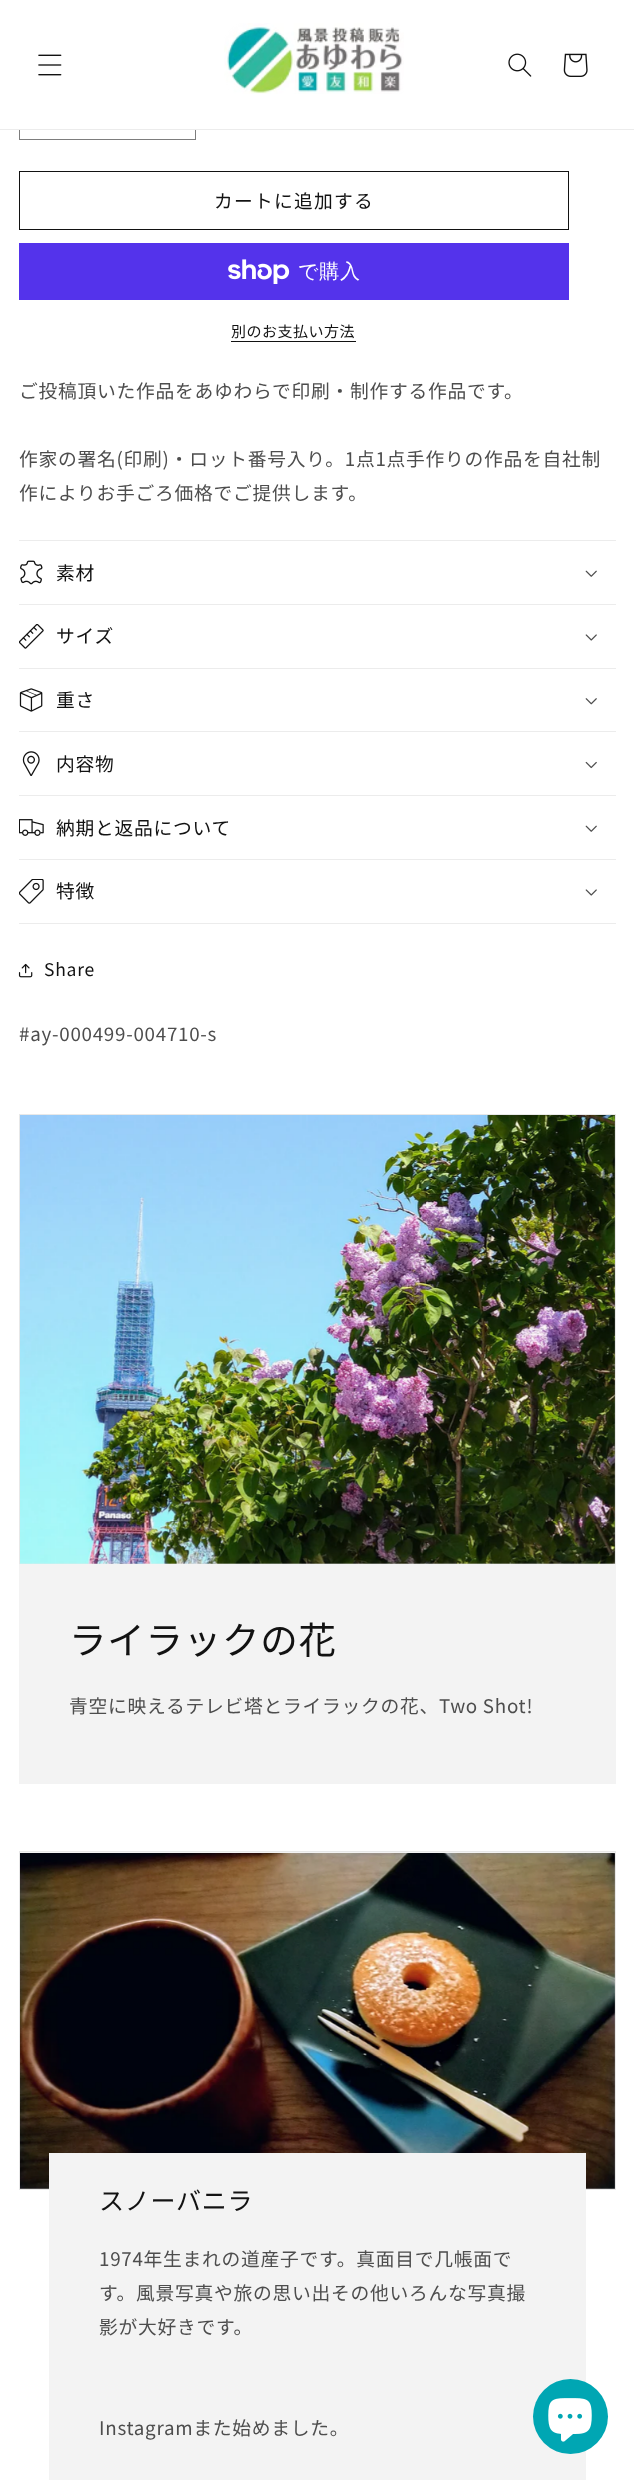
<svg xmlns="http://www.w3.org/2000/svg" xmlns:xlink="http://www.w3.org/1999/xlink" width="634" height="2480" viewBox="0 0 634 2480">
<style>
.cls-1{font:18.75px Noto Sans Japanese;letter-spacing:1.25px;fill:#121212}
.cls-2{font:500 20px WenQuanYi Zen Hei;letter-spacing:0.75px;fill:#ffffff}
.cls-3{font:15px Noto Sans Japanese;letter-spacing:0.5px;fill:#121212}
.cls-4{font:18.75px Noto Sans Japanese;letter-spacing:0.75px;fill:#4d4d4d}
.cls-5{font:18.75px Noto Sans Japanese;letter-spacing:0.75px;fill:#121212}
.cls-6{font:17.5px Noto Sans Japanese;letter-spacing:0.75px;fill:#121212}
.cls-7{font:37.5px Noto Sans Japanese;letter-spacing:0.75px;fill:#121212}
.cls-8{font:25px Noto Sans Japanese;letter-spacing:0.75px;fill:#121212}
</style>
<rect width="100%" height="100%" fill="#ffffff"/>
<rect fill="none" stroke="#7d7d7d" x="19.5" y="81.5" width="176" height="58"/>
<rect fill="#ffffff" x="19" y="81" width="177" height="48"/>
<rect fill="#ececec" x="0" y="129" width="634" height="1"/>
<image xlink:href="image0.png" x="38" y="54" width="24" height="22"/>
<image xlink:href="image1.png" x="224" y="23" width="180" height="71"/>
<image xlink:href="image2.png" x="508" y="53" width="24" height="24"/>
<image xlink:href="image3.png" x="563" y="53" width="25" height="24"/>
<rect fill="none" stroke="#121212" x="19.5" y="171.5" width="549" height="58"/>
<rect fill="#5433eb" x="19" y="243" width="550" height="57"/>
<image xlink:href="image4.png" x="228" y="259" width="62" height="25"/>
<rect fill="#121212" x="231" y="341" width="125" height="1"/>
<rect fill="#ececec" x="19" y="540" width="597" height="1"/>
<rect fill="#ececec" x="19" y="604" width="597" height="1"/>
<image xlink:href="image5.png" x="20" y="560" width="23" height="25"/>
<image xlink:href="image6.png" x="585" y="570" width="12" height="7"/>
<rect fill="#ececec" x="19" y="668" width="597" height="1"/>
<image xlink:href="image7.png" x="19" y="624" width="25" height="25"/>
<image xlink:href="image8.png" x="585" y="634" width="12" height="7"/>
<rect fill="#ececec" x="19" y="731" width="597" height="1"/>
<image xlink:href="image9.png" x="19" y="688" width="24" height="24"/>
<image xlink:href="image10.png" x="585" y="698" width="12" height="7"/>
<rect fill="#ececec" x="19" y="795" width="597" height="1"/>
<image xlink:href="image11.png" x="22" y="751" width="18" height="25"/>
<image xlink:href="image12.png" x="585" y="761" width="12" height="8"/>
<rect fill="#ececec" x="19" y="859" width="597" height="1"/>
<image xlink:href="image13.png" x="19" y="819" width="25" height="17"/>
<image xlink:href="image6.png" x="585" y="825" width="12" height="7"/>
<rect fill="#ececec" x="19" y="923" width="597" height="1"/>
<image xlink:href="image14.png" x="19" y="879" width="25" height="25"/>
<image xlink:href="image8.png" x="585" y="889" width="12" height="7"/>
<image xlink:href="image15.png" x="18" y="963" width="15" height="15"/>
<rect fill="none" stroke="#e8e8e8" x="19.5" y="1114.5" width="596" height="449"/>
<image xlink:href="image16.png" x="20" y="1115" width="595" height="449"/>
<rect fill="#f3f3f3" x="19" y="1564" width="597" height="220"/>
<rect fill="#f3f3f3" stroke="#e8e8e8" x="19.5" y="1851.5" width="596" height="338"/>
<image xlink:href="image17.png" x="20" y="1853" width="595" height="336"/>
<rect fill="#f3f3f3" x="49" y="2153" width="537" height="327"/>
<circle fill="#00a6b3" cx="570.5" cy="2416.5" r="37.5"/>
<image xlink:href="image18.png" x="548" y="2398" width="44" height="44"/>
<text class="cls-1" x="214" y="208">カートに追加する</text>
<text class="cls-2" x="298" y="278">で購入</text>
<text class="cls-3" x="231" y="337">別のお支払い方法</text>
<text class="cls-4" x="19" y="398">ご投稿頂いた作品をあゆわらで印刷・制作する作品です。</text>
<text class="cls-4"><tspan x="19" y="466">作家の署名(印刷)・ロット番号入り。1点1点手作りの作品を自社制</tspan><tspan x="19" y="500">作によりお手ごろ価格でご提供します。</tspan></text>
<text class="cls-5" x="56" y="580">素材</text>
<text class="cls-5" x="56" y="643">サイズ</text>
<text class="cls-5" x="56" y="707">重さ</text>
<text class="cls-5" x="56" y="771">内容物</text>
<text class="cls-5" x="56" y="835">納期と返品について</text>
<text class="cls-5" x="56" y="898">特徴</text>
<text class="cls-6" x="44" y="976">Share</text>
<text class="cls-4" x="19" y="1041">#ay-000499-004710-s</text>
<text class="cls-7" x="69" y="1654">ライラックの花</text>
<text class="cls-4" x="69" y="1713">青空に映えるテレビ塔とライラックの花、Two Shot!</text>
<text class="cls-8" x="99" y="2210">スノーバニラ</text>
<text class="cls-4"><tspan x="99" y="2266">1974年生まれの道産子です。真面目で几帳面で</tspan><tspan x="99" y="2300">す。風景写真や旅の思い出その他いろんな写真撮</tspan><tspan x="99" y="2334">影が大好きです。</tspan></text>
<text class="cls-4" x="99" y="2435">Instagramまた始めました。</text>
</svg>
